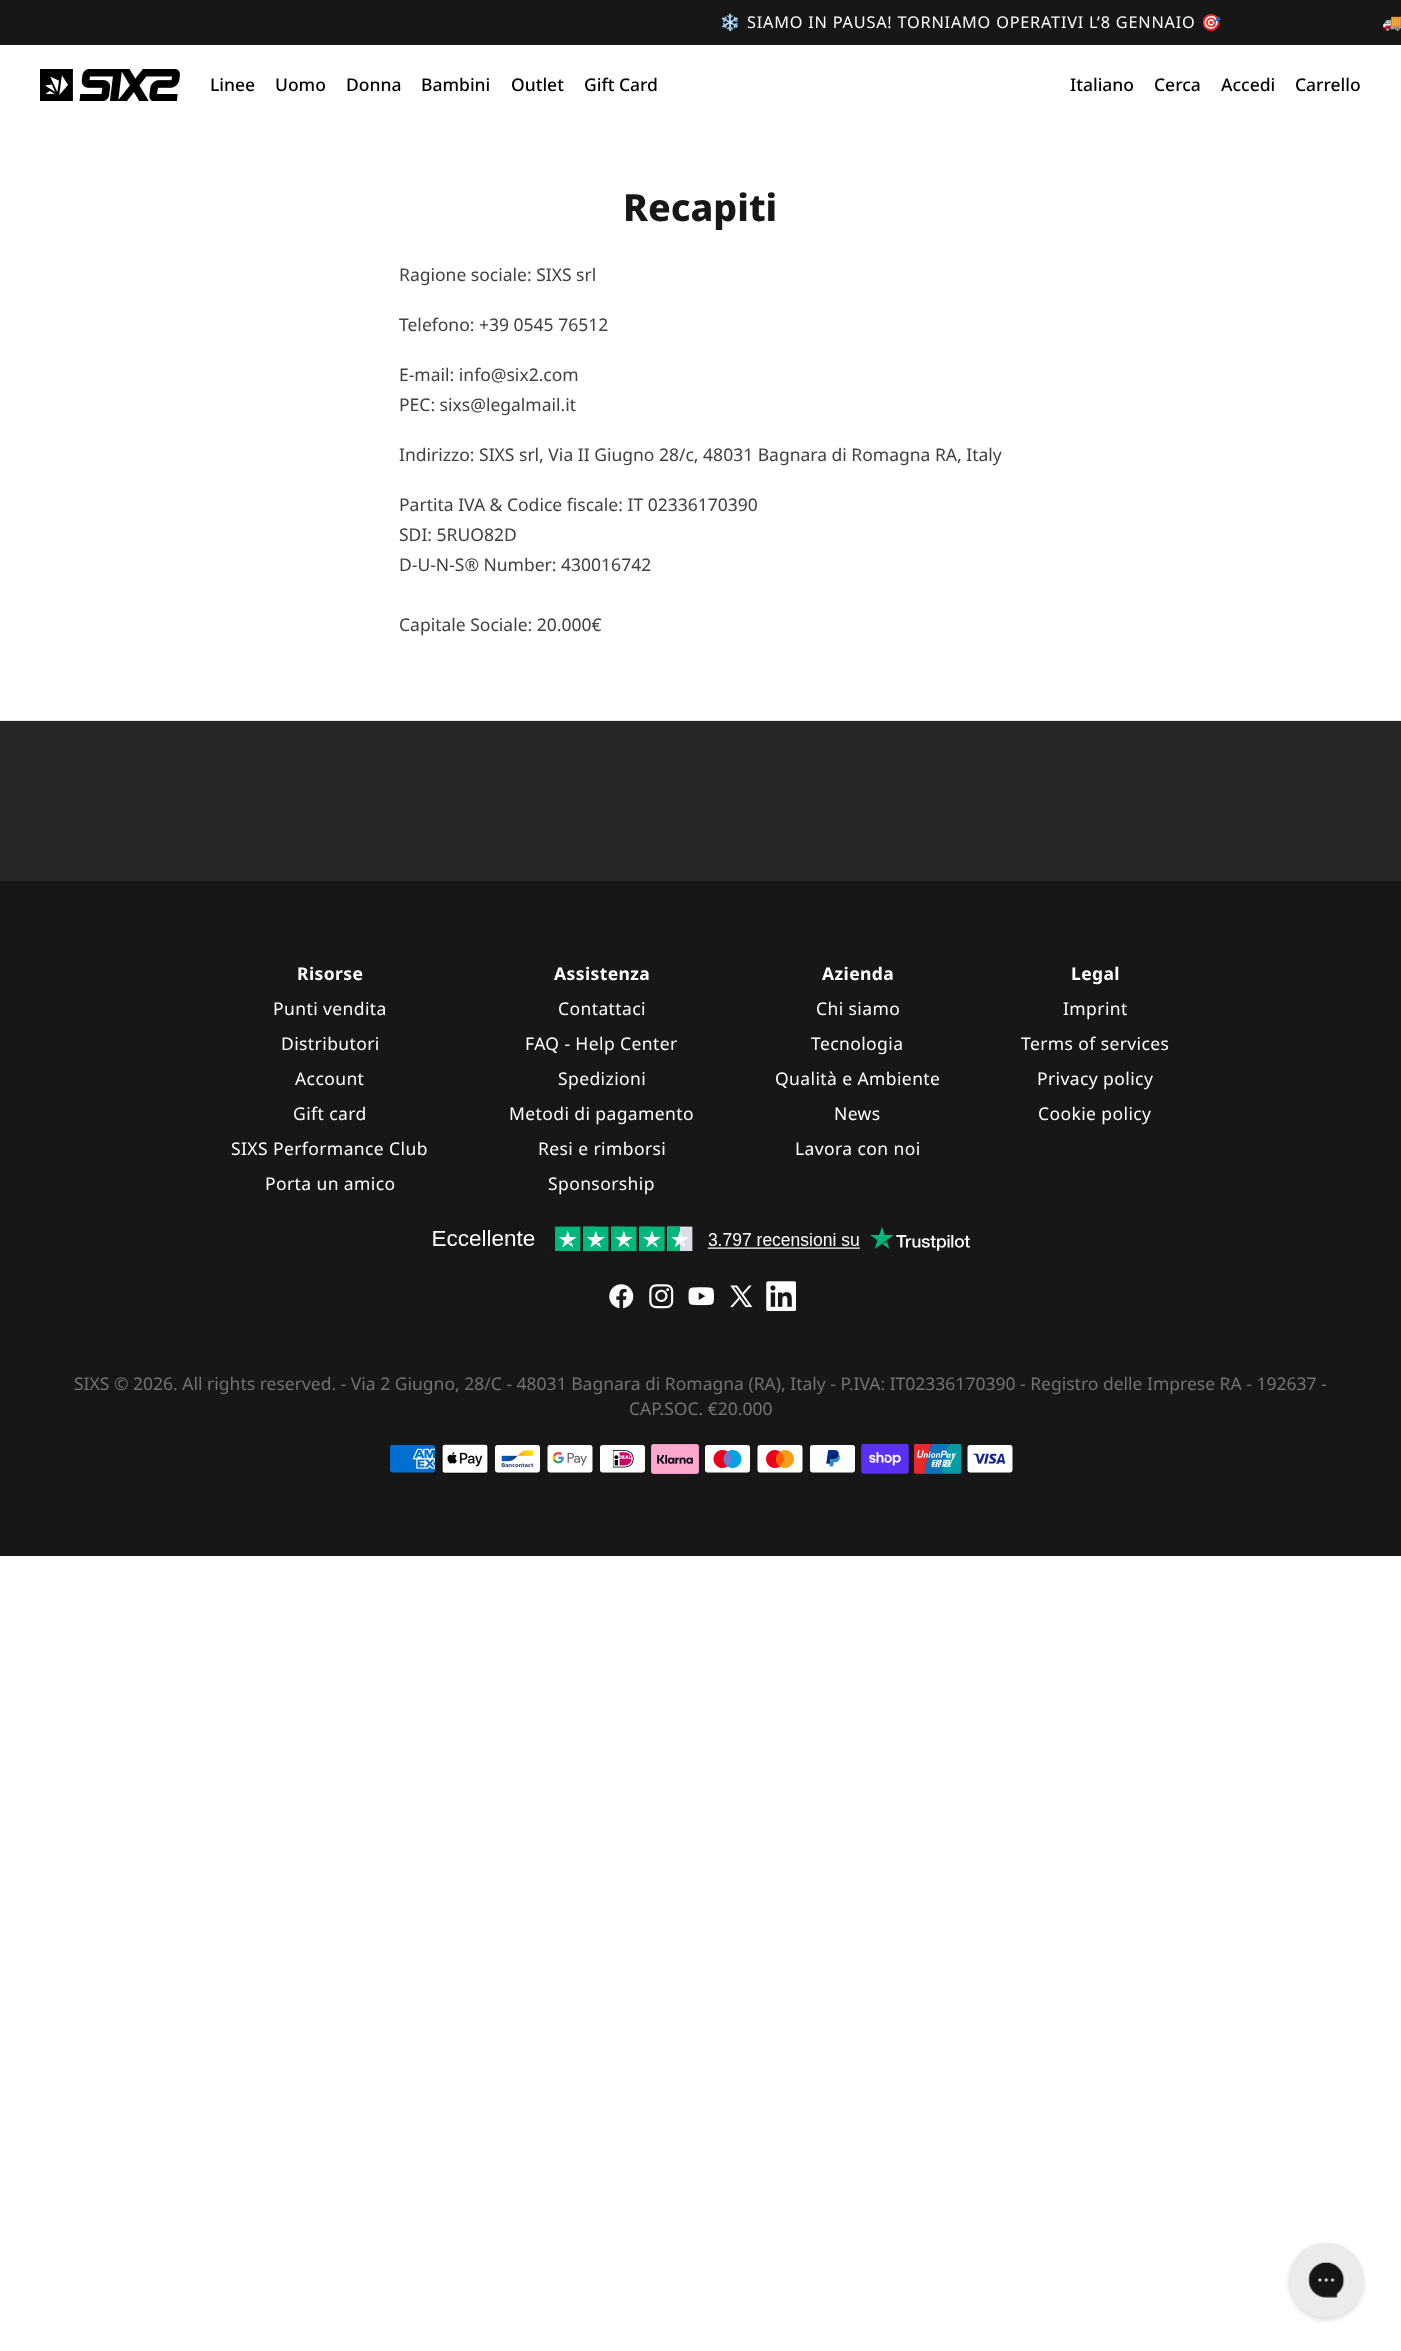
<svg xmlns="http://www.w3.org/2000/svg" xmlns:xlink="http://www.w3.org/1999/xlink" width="1401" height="2351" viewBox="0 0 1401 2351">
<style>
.cls-1{font:16.25px Noto Color Emoji;letter-spacing:0.8px;fill:#ffffff}
.cls-2{font:16.25px Noto Sans;letter-spacing:0.8px;fill:#ffffff}
.cls-3{font:500 17.5px Noto Sans;fill:#000000}
.cls-4{font:800 37.5px Noto Sans;fill:#171717}
.cls-5{font:17.5px Noto Sans;fill:#404040}
.cls-6{font:bold 17.5px Noto Sans;letter-spacing:0.4px;fill:#ffffff}
.cls-7{font:17.5px Noto Sans;letter-spacing:0.4px;fill:#ffffff}
.cls-8{font:17.5px Noto Sans;fill:#737373}
</style>
<rect width="100%" height="100%" fill="#ffffff"/>
<rect fill="#171717" x="0" y="0" width="1401" height="45"/>
<image xlink:href="image0.png" x="40" y="69" width="140" height="32"/>
<rect fill="#262626" x="0" y="721" width="1401" height="160"/>
<rect fill="#e5e7eb" x="0" y="720" width="1401" height="1"/>
<rect fill="#171717" x="0" y="881" width="1401" height="675"/>
<image xlink:href="image1.png" x="433" y="1226" width="537" height="26"/>
<image xlink:href="image2.png" x="609" y="1284" width="25" height="25"/>
<image xlink:href="image3.png" x="649" y="1284" width="25" height="25"/>
<image xlink:href="image4.png" x="688" y="1287" width="26" height="19"/>
<image xlink:href="image5.png" x="730" y="1285" width="23" height="23"/>
<image xlink:href="image6.png" x="766" y="1281" width="30" height="30"/>
<image xlink:href="image7.png" x="390" y="1445" width="45" height="28"/>
<image xlink:href="image8.png" x="441" y="1444" width="48" height="30"/>
<image xlink:href="image9.png" x="495" y="1445" width="45" height="28"/>
<image xlink:href="image10.png" x="547" y="1445" width="46" height="28"/>
<image xlink:href="image11.png" x="600" y="1445" width="45" height="28"/>
<image xlink:href="image12.png" x="651" y="1444" width="48" height="30"/>
<image xlink:href="image13.png" x="705" y="1445" width="45" height="28"/>
<image xlink:href="image14.png" x="757" y="1445" width="46" height="28"/>
<image xlink:href="image15.png" x="810" y="1445" width="45" height="28"/>
<image xlink:href="image16.png" x="861" y="1444" width="48" height="30"/>
<image xlink:href="image17.png" x="914" y="1444" width="47" height="30"/>
<image xlink:href="image18.png" x="967" y="1445" width="46" height="28"/>
<image xlink:href="image19.png" x="1286" y="2242" width="80" height="81"/>
<text class="cls-1" x="720" y="28">❄️</text>
<text class="cls-2" x="747" y="28">SIAMO IN PAUSA! TORNIAMO OPERATIVI L’8 GENNAIO</text>
<text class="cls-1" x="1201" y="28">🎯</text>
<text class="cls-1" x="1382" y="28">🚚</text>
<text class="cls-3" x="210" y="91">Linee</text>
<text class="cls-3" x="275" y="91">Uomo</text>
<text class="cls-3" x="346" y="91">Donna</text>
<text class="cls-3" x="421" y="91">Bambini</text>
<text class="cls-3" x="511" y="91">Outlet</text>
<text class="cls-3" x="584" y="91">Gift Card</text>
<text class="cls-3" x="1070" y="91">Italiano</text>
<text class="cls-3" x="1154" y="91">Cerca</text>
<text class="cls-3" x="1221" y="91">Accedi</text>
<text class="cls-3" x="1295" y="91">Carrello</text>
<text class="cls-4" x="623" y="221">Recapiti</text>
<text class="cls-5" x="399" y="281">Ragione sociale: SIXS srl</text>
<text class="cls-5" x="399" y="331">Telefono: +39 0545 76512</text>
<text class="cls-5"><tspan x="399" y="381">E-mail: info@six2.com</tspan><tspan x="399" y="411">PEC: sixs@legalmail.it</tspan></text>
<text class="cls-5" x="399" y="461">Indirizzo: SIXS srl, Via II Giugno 28/c, 48031 Bagnara di Romagna RA, Italy</text>
<text class="cls-5"><tspan x="399" y="511">Partita IVA &amp; Codice fiscale: IT 02336170390</tspan><tspan x="399" y="541">SDI: 5RUO82D</tspan><tspan x="399" y="571">D-U-N-S® Number: 430016742</tspan></text>
<text class="cls-5" x="399" y="631">Capitale Sociale: 20.000€</text>
<text class="cls-6" x="297" y="980">Risorse</text>
<text class="cls-7" x="273" y="1015">Punti vendita</text>
<text class="cls-7" x="281" y="1050">Distributori</text>
<text class="cls-7" x="295" y="1085">Account</text>
<text class="cls-7" x="293" y="1120">Gift card</text>
<text class="cls-7" x="231" y="1155">SIXS Performance Club</text>
<text class="cls-7" x="265" y="1190">Porta un amico</text>
<text class="cls-6" x="554" y="980">Assistenza</text>
<text class="cls-7" x="558" y="1015">Contattaci</text>
<text class="cls-7" x="525" y="1050">FAQ - Help Center</text>
<text class="cls-7" x="558" y="1085">Spedizioni</text>
<text class="cls-7" x="509" y="1120">Metodi di pagamento</text>
<text class="cls-7" x="538" y="1155">Resi e rimborsi</text>
<text class="cls-7" x="548" y="1190">Sponsorship</text>
<text class="cls-6" x="822" y="980">Azienda</text>
<text class="cls-7" x="816" y="1015">Chi siamo</text>
<text class="cls-7" x="811" y="1050">Tecnologia</text>
<text class="cls-7" x="775" y="1085">Qualità e Ambiente</text>
<text class="cls-7" x="834" y="1120">News</text>
<text class="cls-7" x="795" y="1155">Lavora con noi</text>
<text class="cls-6" x="1071" y="980">Legal</text>
<text class="cls-7" x="1063" y="1015">Imprint</text>
<text class="cls-7" x="1021" y="1050">Terms of services</text>
<text class="cls-7" x="1037" y="1085">Privacy policy</text>
<text class="cls-7" x="1038" y="1120">Cookie policy</text>
<text class="cls-8" x="74" y="1390">SIXS © 2026. All rights reserved. - Via 2 Giugno, 28/C - 48031 Bagnara di Romagna (RA), Italy - P.IVA: IT02336170390 - Registro delle Imprese RA - 192637 -</text>
<text class="cls-8" x="629" y="1415">CAP.SOC. €20.000</text>
</svg>
